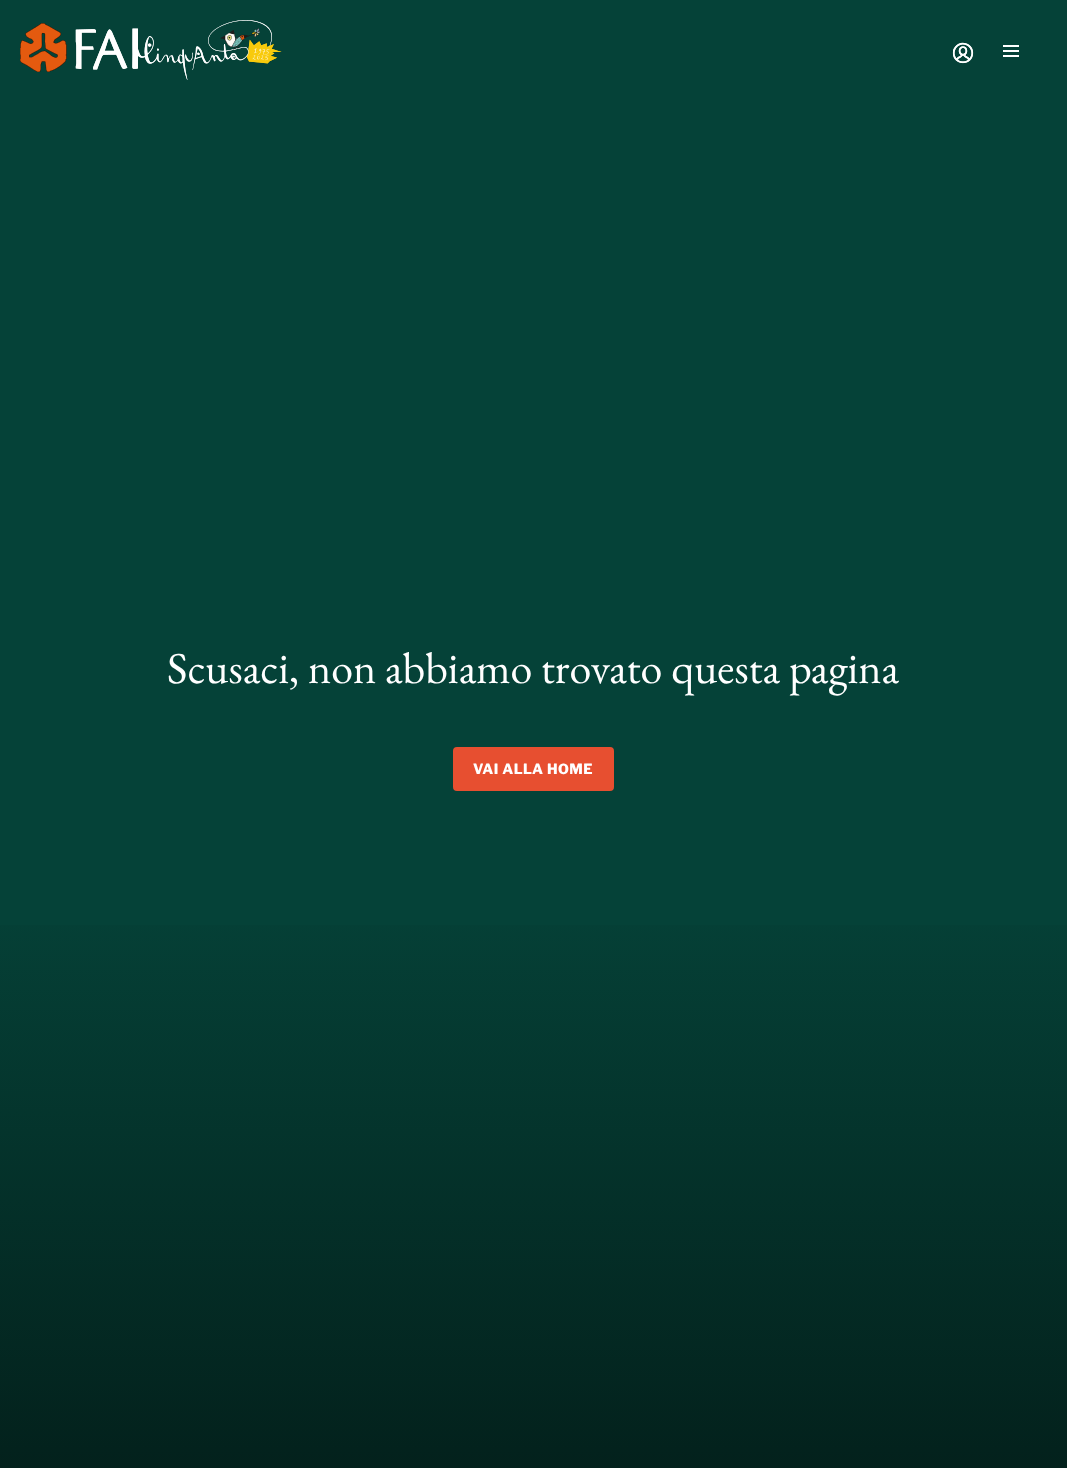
<svg xmlns="http://www.w3.org/2000/svg" xmlns:xlink="http://www.w3.org/1999/xlink" width="1067" height="1468" viewBox="0 0 1067 1468">
<style>
.cls-1{font:44px EB Garamond;fill:#ffffff}
.cls-2{font:800 14px Libre Franklin;letter-spacing:0.5px;fill:#ffffff}
</style>
<defs>
<linearGradient id="g1" gradientUnits="userSpaceOnUse" x1="534" y1="881" x2="534" y2="1468"><stop offset="0" stop-color="#054238"/><stop offset="1" stop-color="#03211c"/></linearGradient>
</defs>
<rect width="100%" height="100%" fill="#054238"/>
<image xlink:href="image0.png" x="20" y="20" width="262" height="60"/>
<image xlink:href="image1.png" x="952" y="42" width="22" height="22"/>
<image xlink:href="image2.png" x="1003" y="45" width="16" height="12"/>
<image xlink:href="image3.png" x="20" y="20" width="262" height="60"/>
<image xlink:href="image4.png" x="952" y="42" width="22" height="22"/>
<rect fill="#e74f30" stroke="#e74f30" stroke-width="2" x="454" y="748" width="159" height="42" rx="3"/>
<rect fill="url(#g1)" x="0" y="925" width="1067" height="543"/>
<text class="cls-1" x="167" y="683">Scusaci, non abbiamo trovato questa pagina</text>
<text class="cls-2" x="473" y="774">VAI ALLA HOME</text>
</svg>
